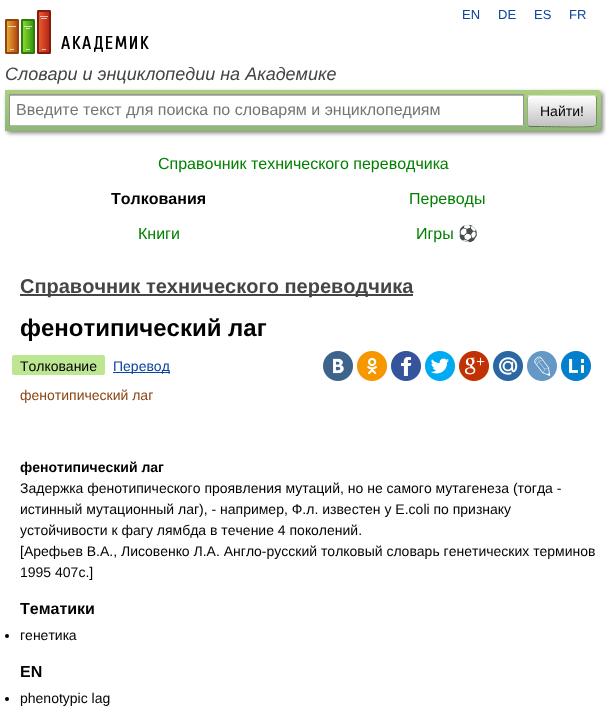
<svg xmlns="http://www.w3.org/2000/svg" xmlns:xlink="http://www.w3.org/1999/xlink" width="606" height="722" viewBox="0 0 606 722">
<style>*{font-kerning:none!important;font-variant-ligatures:none!important}</style>
<style>
.cls-1{font:13px Liberation Sans;fill:#0d44a0}
.cls-2{font:italic 18px Liberation Sans;fill:#454545}
.cls-3{font:16px Liberation Sans;fill:#757575}
.cls-4{font:14px Liberation Sans;fill:#000000}
.cls-5{font:16px Liberation Sans;fill:#008000}
.cls-6{font:bold 16px Liberation Sans;fill:#000000}
.cls-7{font:16px Noto Color Emoji;fill:#008000}
.cls-8{font:bold 20px Liberation Sans;fill:#454545}
.cls-9{font:bold 24px Liberation Sans;fill:#000000}
.cls-10{font:14px Liberation Sans;fill:#0d44a0}
.cls-11{font:14px Liberation Sans;fill:#8b4513}
.cls-12{font:bold 14px Liberation Sans;fill:#000000}
</style>
<defs>
<linearGradient id="g1" gradientUnits="userSpaceOnUse" x1="303" y1="90" x2="303" y2="131"><stop offset="0" stop-color="#abcf7e"/><stop offset="1" stop-color="#8eb874"/></linearGradient>
<clipPath id="clip1"><rect x="527" y="95" width="70" height="32" rx="3"/></clipPath>
<linearGradient id="g2" gradientUnits="userSpaceOnUse" x1="562" y1="66" x2="562" y2="96"><stop offset="0" stop-color="#ffffff"/><stop offset="1" stop-color="#c1c1c1"/></linearGradient>
<linearGradient id="g3" gradientUnits="userSpaceOnUse" x1="562" y1="96" x2="562" y2="126"><stop offset="0" stop-color="#ffffff"/><stop offset="1" stop-color="#c1c1c1"/></linearGradient>
<linearGradient id="g4" gradientUnits="userSpaceOnUse" x1="562" y1="126" x2="562" y2="156"><stop offset="0" stop-color="#ffffff"/><stop offset="1" stop-color="#c1c1c1"/></linearGradient>
</defs>
<rect width="100%" height="100%" fill="#ffffff"/>
<image xlink:href="image0.png" x="5" y="10" width="144" height="44"/>
<rect fill="#000000" fill-opacity="0.5" filter="blur(2px)" x="7" y="92" width="596" height="41" rx="3"/>
<path fill="url(#g1)" d="M5 90H598C599.5 90 601 91.5 601 93V128C601 129.5 599.5 131 598 131H5Z"/>
<rect fill="#ffffff" x="10" y="96" width="513" height="29"/>
<rect fill="#b3b3b3" x="10" y="95" width="513" height="1"/>
<rect fill="#949494" x="9" y="94" width="515" height="1"/>
<rect fill="#949494" x="523" y="94" width="1" height="32"/>
<rect fill="#b4b4b4" x="9" y="125" width="515" height="1"/>
<rect fill="#949494" x="9" y="94" width="1" height="32"/>
<g clip-path="url(#clip1)">
<rect fill="url(#g2)" x="527" y="95" width="70" height="1"/>
<rect fill="url(#g3)" x="527" y="96" width="70" height="30"/>
<rect fill="url(#g4)" x="527" y="126" width="70" height="1"/>
</g>
<path fill="none" stroke="#d1e4bc" d="M528 96L530 95.5H540.5C547 95.5 593.5 94.5 595.5 96H596"/>
<path fill="none" stroke="#7a8e69" d="M596 96C596 96.5 596.5 97.5 596.5 98V124C596.5 124.5 596 125.5 596 126"/>
<path fill="none" stroke="#5d7250" d="M596 126H595.5C593.5 127.5 547 126.5 540.5 126.5H530L528 126"/>
<path fill="none" stroke="#9aae89" d="M528 126C528 125.5 527.5 124.5 527.5 124V98C527.5 97.5 528 96.5 528 96"/>
<rect fill="#454545" x="20" y="294" width="393" height="2"/>
<rect fill="#bde693" x="12" y="355" width="93" height="20" rx="2"/>
<rect fill="#0d44a0" x="113" y="372" width="57" height="1"/>
<image xlink:href="image1.png" x="323" y="351" width="30" height="30"/>
<image xlink:href="image2.png" x="357" y="351" width="30" height="30"/>
<image xlink:href="image3.png" x="391" y="351" width="30" height="30"/>
<image xlink:href="image4.png" x="425" y="351" width="30" height="30"/>
<image xlink:href="image5.png" x="459" y="351" width="30" height="30"/>
<image xlink:href="image6.png" x="493" y="351" width="30" height="30"/>
<image xlink:href="image7.png" x="527" y="351" width="30" height="30"/>
<image xlink:href="image8.png" x="561" y="351" width="30" height="30"/>
<circle fill="#000000" cx="7" cy="636" r="2"/>
<circle fill="#000000" cx="7" cy="699" r="2"/>
<text class="cls-1" x="462" y="19">EN</text>
<text class="cls-1" x="498" y="19">DE</text>
<text class="cls-1" x="534" y="19">ES</text>
<text class="cls-1" x="569" y="19">FR</text>
<text class="cls-2" x="5" y="80">Словари и энциклопедии на Академике</text>
<text class="cls-3" x="16" y="115">Введите текст для поиска по словарям и энциклопедиям</text>
<text class="cls-4" x="540" y="116">Найти!</text>
<text class="cls-5" x="158" y="169">Справочник технического переводчика</text>
<text class="cls-6" x="111" y="204">Толкования</text>
<text class="cls-5" x="409" y="204">Переводы</text>
<text class="cls-5" x="138" y="239">Книги</text>
<text class="cls-5" x="416" y="239">Игры</text>
<text class="cls-7" x="458" y="239">⚽</text>
<text class="cls-8" x="20" y="293">Справочник технического переводчика</text>
<text class="cls-9" x="20" y="336">фенотипический лаг</text>
<text class="cls-4" x="20" y="371">Толкование</text>
<text class="cls-10" x="113" y="371">Перевод</text>
<text class="cls-11" x="20" y="400">фенотипический лаг</text>
<text class="cls-12" x="20" y="472">фенотипический лаг</text>
<text class="cls-4"><tspan x="20" y="493">Задержка фенотипического проявления мутаций, но не самого мутагенеза (тогда -</tspan><tspan x="20" y="514">истинный мутационный лаг), - например, Ф.л. известен у E.coli по признаку</tspan><tspan x="20" y="535">устойчивости к фагу лямбда в течение 4 поколений.</tspan><tspan x="20" y="556">[Арефьев В.А., Лисовенко Л.А. Англо-русский толковый словарь генетических терминов</tspan><tspan x="20" y="577">1995 407с.]</tspan></text>
<text class="cls-6" x="20" y="614">Тематики</text>
<text class="cls-4" x="20" y="640">генетика</text>
<text class="cls-6" x="20" y="677">EN</text>
<text class="cls-4" x="20" y="703">phenotypic lag</text>
</svg>
